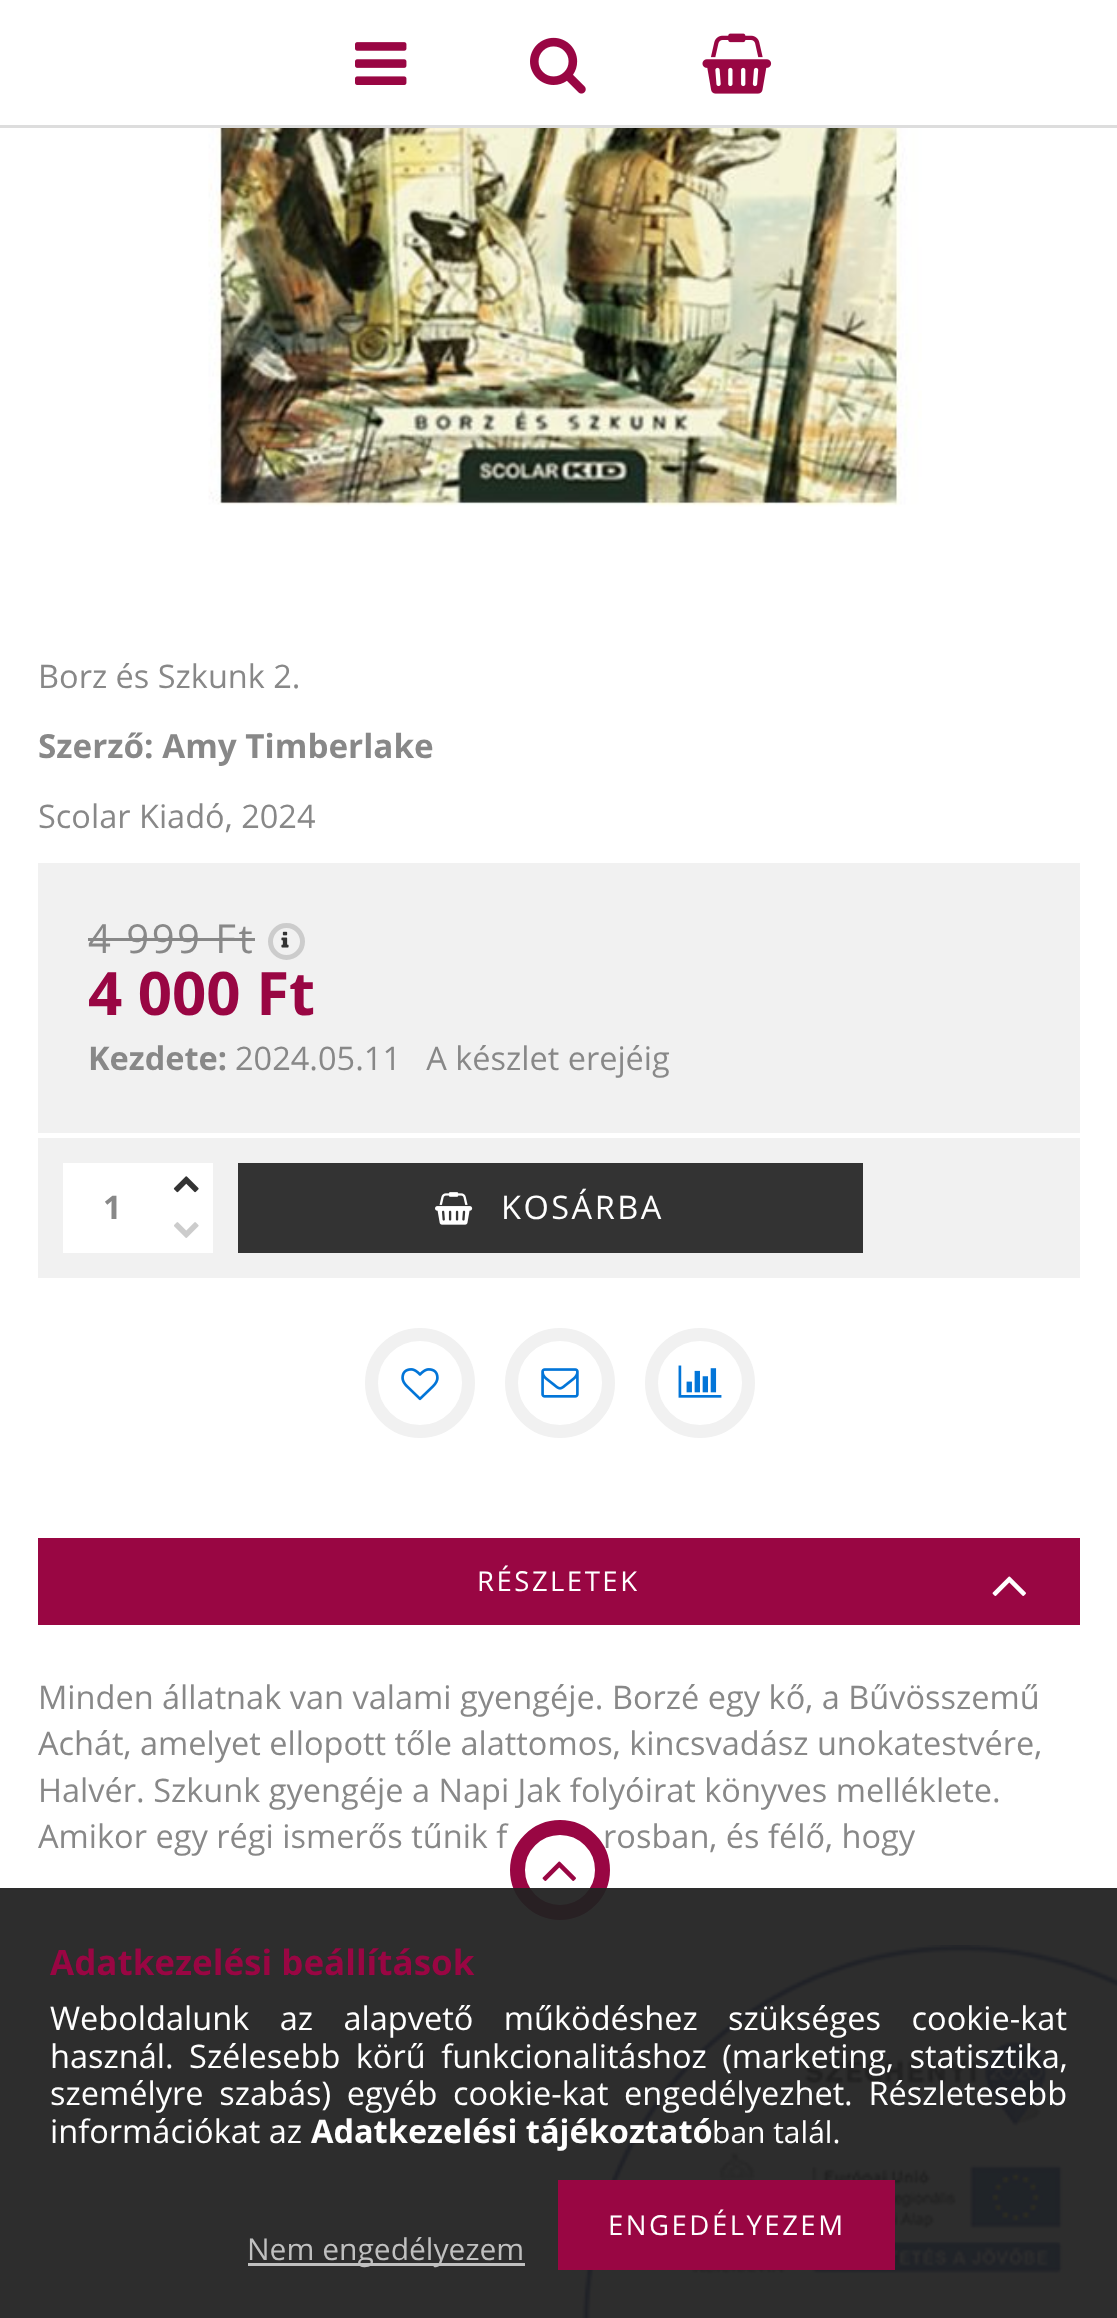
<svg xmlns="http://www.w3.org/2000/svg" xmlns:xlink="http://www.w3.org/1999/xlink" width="1117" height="2318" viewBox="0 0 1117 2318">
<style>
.cls-1{font:32.5px Open Sans;fill:#888888}
.cls-2{font:bold 33.25px Open Sans;fill:#888888}
.cls-3{font:40px Open Sans;letter-spacing:2.5px;fill:#888888}
.cls-4{font:bold 60px Open Sans;fill:#990643}
.cls-5{font:bold 32.5px Open Sans;fill:#888888}
.cls-6{font:32.5px Open Sans;letter-spacing:2.5px;fill:#ffffff}
.cls-7{font:27.5px Open Sans;letter-spacing:2.5px;fill:#ffffff}
.cls-8{font:bold 35px Open Sans;fill:#990643}
.cls-9{font:32.5px Open Sans;fill:#ffffff}
.cls-10{font:bold 32.5px Open Sans;fill:#ffffff}
.cls-11{font:30px Open Sans;fill:#ffffff}
.cls-12{font:30px Open Sans;fill:#c0c0c0}
</style>
<rect width="100%" height="100%" fill="#ffffff"/>
<rect fill="#dddddd" x="0" y="125" width="1117" height="3"/>
<image xlink:href="image0.png" x="355" y="42" width="52" height="43"/>
<image xlink:href="image1.png" x="530" y="37" width="56" height="57"/>
<image xlink:href="image2.png" x="702" y="33" width="70" height="61"/>
<image xlink:href="image3.png" x="208" y="128" width="714" height="379"/>
<rect fill="#f1f1f1" x="38" y="863" width="1042" height="270"/>
<rect fill="#888888" x="88" y="938" width="167" height="3"/>
<circle fill="none" stroke="#cccccc" stroke-width="5" cx="286.5" cy="941.5" r="16"/>
<image xlink:href="image4.png" x="281" y="931" width="8" height="17"/>
<rect fill="#f1f1f1" x="38" y="1138" width="1042" height="140"/>
<rect fill="#ffffff" x="63" y="1163" width="100" height="90"/>
<rect fill="#ffffff" x="163" y="1163" width="50" height="90"/>
<image xlink:href="image5.png" x="173" y="1176" width="26" height="17"/>
<image xlink:href="image6.png" x="174" y="1222" width="25" height="16"/>
<rect fill="#333333" x="238" y="1163" width="625" height="90"/>
<image xlink:href="image7.png" x="435" y="1192" width="38" height="33"/>
<circle fill="none" stroke="#f1f1f1" stroke-width="13" cx="420" cy="1383" r="48.5"/>
<image xlink:href="image8.png" x="401" y="1368" width="38" height="33"/>
<circle fill="none" stroke="#f1f1f1" stroke-width="13" cx="560" cy="1383" r="48.5"/>
<image xlink:href="image9.png" x="541" y="1368" width="38" height="30"/>
<circle fill="none" stroke="#f1f1f1" stroke-width="13" cx="700" cy="1383" r="48.5"/>
<image xlink:href="image10.png" x="678" y="1365" width="44" height="33"/>
<rect fill="#990643" x="38" y="1538" width="1042" height="87"/>
<image xlink:href="image11.png" x="992" y="1576" width="34" height="20"/>
<image xlink:href="image13.png" x="582" y="1945" width="535" height="373"/>
<text class="cls-1" x="38" y="688">Borz és Szkunk 2.</text>
<text class="cls-2" x="38" y="758">Szerző: Amy Timberlake</text>
<text class="cls-1" x="38" y="828">Scolar Kiadó, 2024</text>
<text class="cls-3" x="88" y="953">4 999 Ft</text>
<text class="cls-4" x="88" y="1015">4 000 Ft</text>
<text class="cls-5" x="88" y="1070">Kezdete:</text>
<text class="cls-1" xml:space="preserve" x="235" y="1070">2024.05.11   A készlet erejéig</text>
<text class="cls-5" x="103" y="1219">1</text>
<text class="cls-6" x="501" y="1219">KOSÁRBA</text>
<text class="cls-7" x="477" y="1591">RÉSZLETEK</text>
<text class="cls-1"><tspan x="38" y="1709">Minden állatnak van valami gyengéje. Borzé egy kő, a Bűvösszemű</tspan><tspan x="38" y="1755">Achát, amelyet ellopott tőle alattomos, kincsvadász unokatestvére,</tspan><tspan x="38" y="1802">Halvér. Szkunk gyengéje a Napi Jak folyóirat könyves melléklete.</tspan><tspan x="38" y="1848">Amikor egy régi ismerős tűnik f</tspan></text>
<text class="cls-1" x="603" y="1848">rosban, és félő, hogy</text>
<circle fill="none" stroke="#990643" stroke-width="15" cx="560" cy="1870" r="42.5"/>
<image xlink:href="image12.png" x="542" y="1861" width="34" height="20"/>
<rect fill="#222222" fill-opacity="0.95" x="0" y="1888" width="1117" height="430"/>
<text class="cls-8" x="50" y="1975">Adatkezelési beállítások</text>
<text class="cls-9"><tspan x="50" y="2030" word-spacing="22">Weboldalunk az alapvető működéshez szükséges cookie-kat</tspan><tspan x="50" y="2068" word-spacing="7">használ. Szélesebb körű funkcionalitáshoz (marketing, statisztika,</tspan><tspan x="50" y="2105" word-spacing="7.25">személyre szabás) egyéb cookie-kat engedélyezhet. Részletesebb</tspan><tspan x="50" y="2143">információkat az</tspan></text>
<text class="cls-10" x="311" y="2143">Adatkezelési tájékoztató</text>
<text class="cls-11" x="712" y="2143">ban talál.</text>
<rect fill="#990643" x="558" y="2180" width="337" height="90"/>
<text class="cls-7" x="608" y="2235">ENGEDÉLYEZEM</text>
<rect fill="#ffffff" fill-opacity="0.7" x="248" y="2263" width="277" height="3"/>
<text class="cls-12" x="247" y="2260">Nem engedélyezem</text>
</svg>
